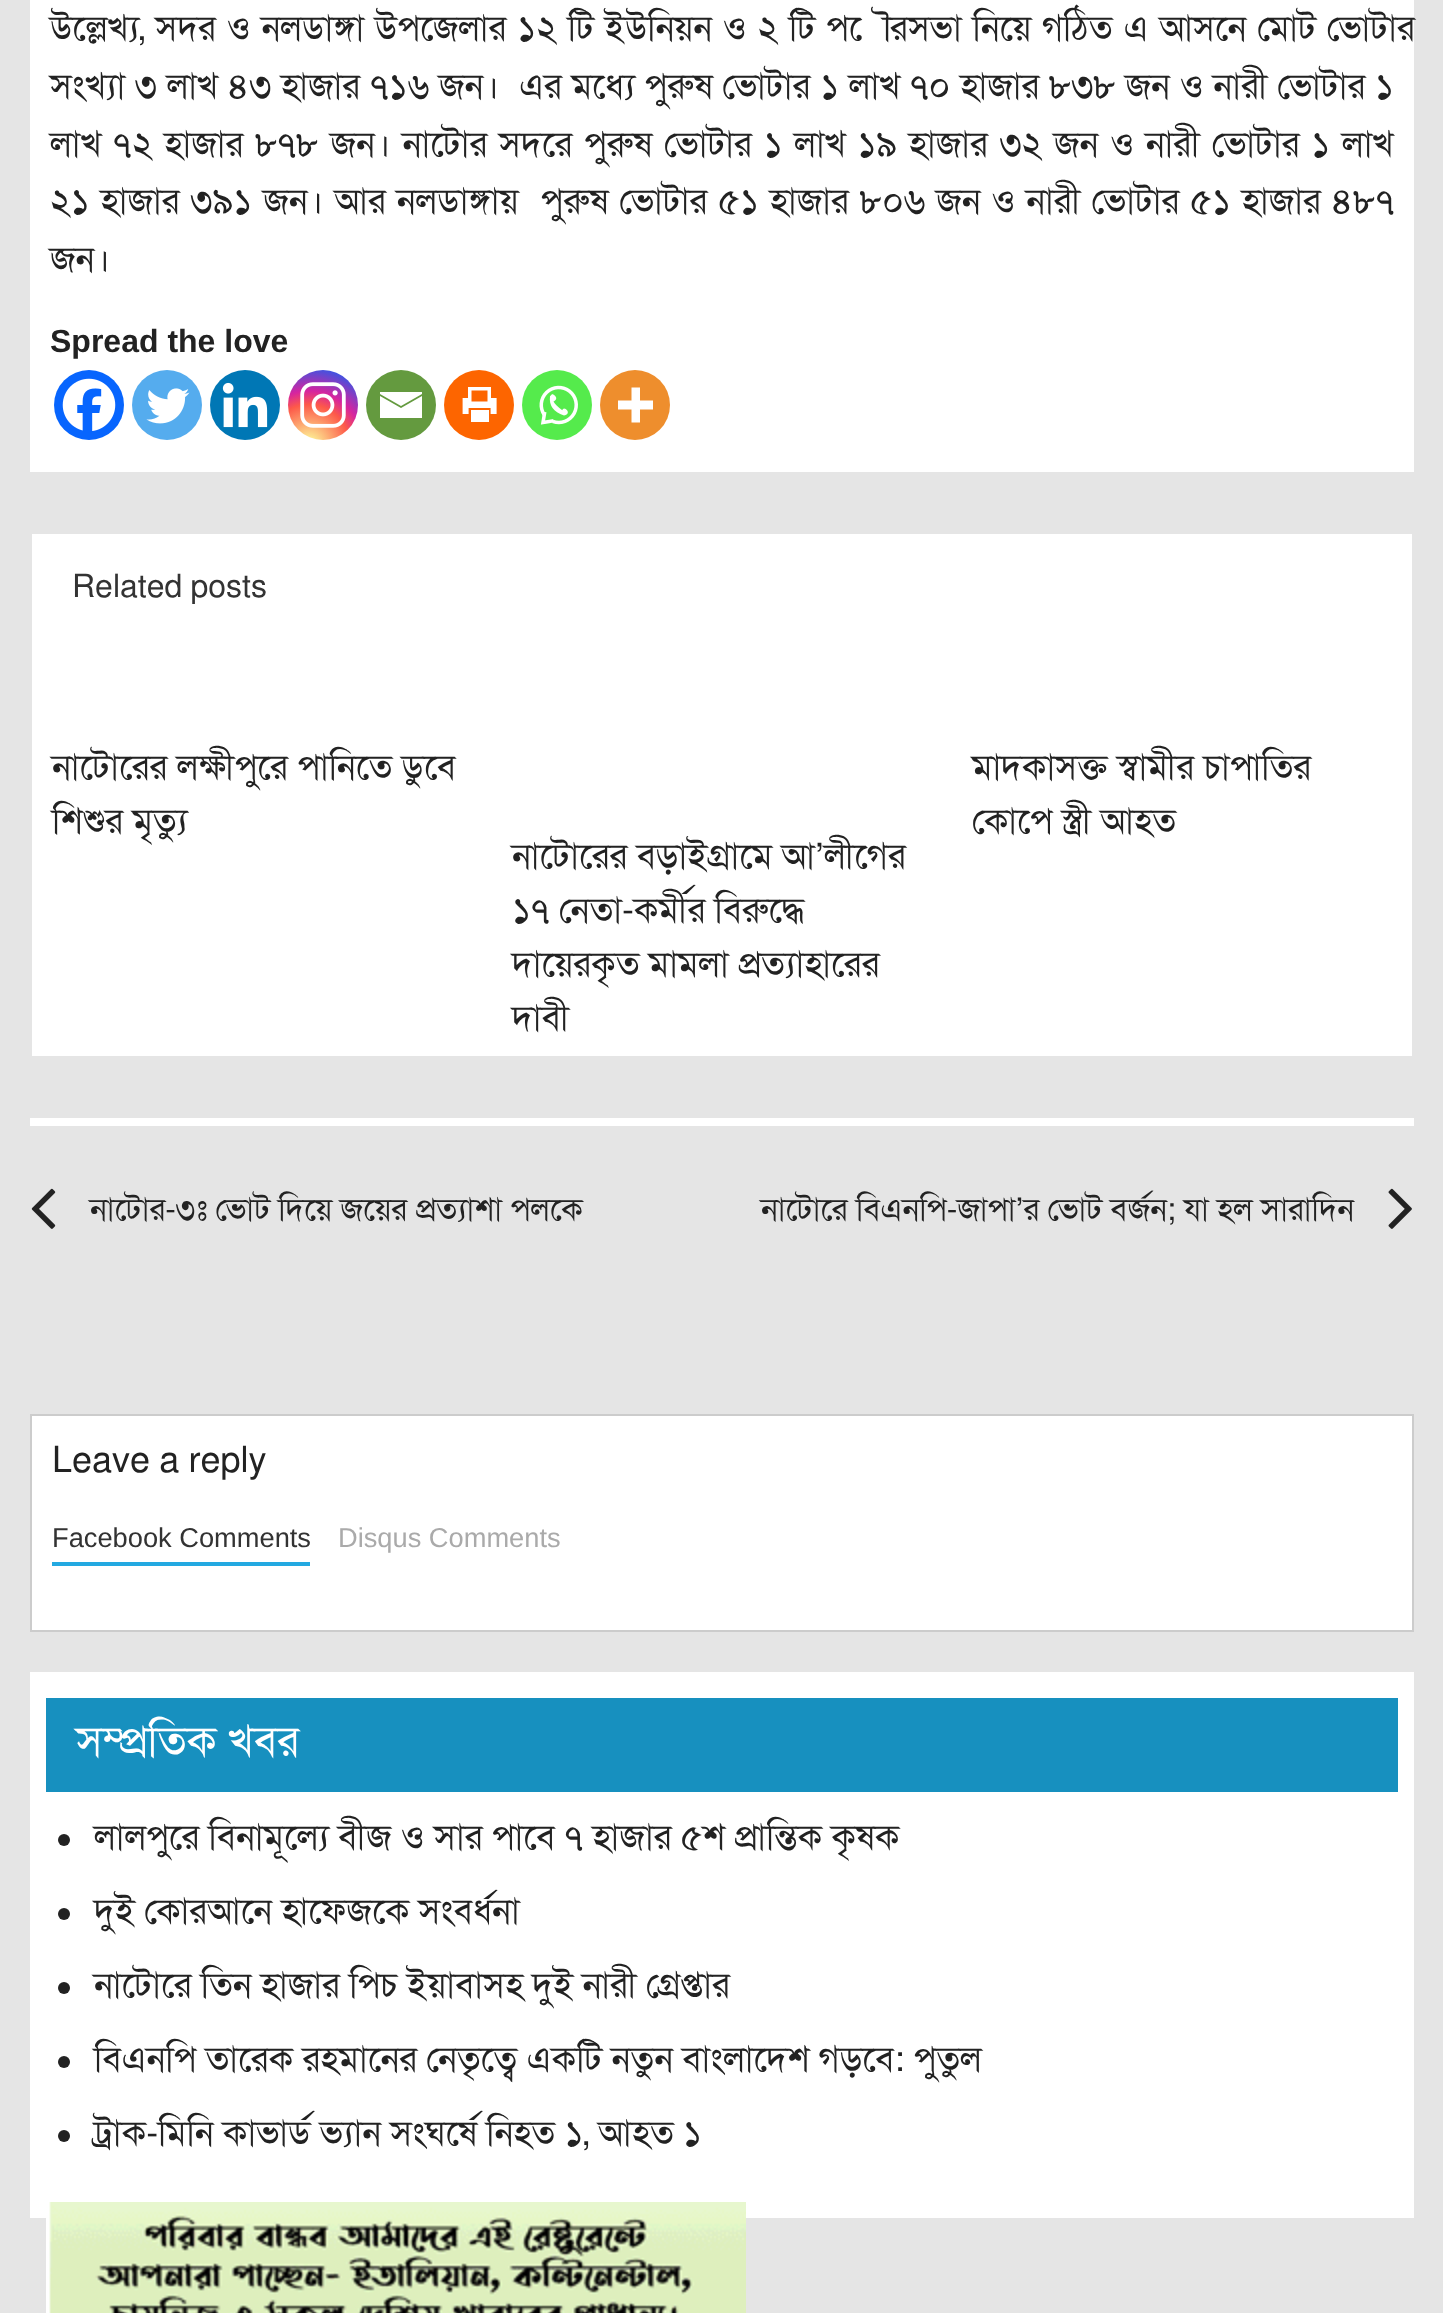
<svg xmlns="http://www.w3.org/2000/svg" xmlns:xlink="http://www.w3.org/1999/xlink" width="1443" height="2313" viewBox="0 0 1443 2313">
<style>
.cls-1{font:36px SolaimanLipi;fill:#222222}
.cls-2{font:bold 32px Liberation Sans;fill:#222222}
.cls-3{font:32px SolaimanLipi;fill:#333333}
.cls-4{font:32px SolaimanLipi;fill:#222222}
.cls-5{font:27.25px Liberation Sans;fill:#333333}
.cls-6{font:27.25px Liberation Sans;fill:#aaaaaa}
.cls-7{font:44px SolaimanLipi;fill:#ffffff}
</style>
<defs>
<radialGradient id="g1" gradientUnits="userSpaceOnUse" cx="309" cy="445" r="90"><stop offset="0" stop-color="#fdf497"/><stop offset="0.05" stop-color="#fdf497"/><stop offset="0.45" stop-color="#fd5949"/><stop offset="0.6" stop-color="#d6249f"/><stop offset="0.9" stop-color="#285aeb"/></radialGradient>
</defs>
<rect width="100%" height="100%" fill="#e5e5e5"/>
<rect fill="#ffffff" x="30" y="0" width="1384" height="472"/>
<circle fill="#0765fe" cx="89" cy="405" r="35"/>
<image xlink:href="image0.png" x="62" y="378" width="54" height="53"/>
<circle fill="#55acee" cx="167" cy="405" r="35"/>
<image xlink:href="image1.png" x="146" y="388" width="44" height="36"/>
<circle fill="#0077b5" cx="245" cy="405" r="35"/>
<image xlink:href="image2.png" x="222" y="382" width="46" height="46"/>
<circle fill="url(#g1)" cx="323" cy="405" r="35"/>
<image xlink:href="image3.png" x="300" y="382" width="46" height="46"/>
<circle fill="#649a3f" cx="401" cy="405" r="35"/>
<path fill="#ffffff" d="M378 392H422V394L401 406L380 394V392M380 396L401 408L422 396V418H380V396"/>
<circle fill="#fd6500" cx="479" cy="405" r="35"/>
<image xlink:href="image4.png" x="462" y="387" width="35" height="35"/>
<circle fill="#55eb4c" cx="557" cy="405" r="35"/>
<image xlink:href="image5.png" x="539" y="385" width="39" height="40"/>
<circle fill="#ee8e2d" cx="635" cy="405" r="35"/>
<path fill="#ffffff" fill-rule="evenodd" d="M640 400.5V387.5H631.5V400.5H618V409.5H631.5V422.5H640V409.5H653V400.5Z"/>
<rect fill="#ffffff" x="32" y="534" width="1380" height="522"/>
<rect fill="#ffffff" x="30" y="1118" width="1384" height="8"/>
<image xlink:href="image6.png" x="31" y="1188" width="25" height="41"/>
<image xlink:href="image7.png" x="1388" y="1188" width="24" height="41"/>
<rect fill="#ffffff" stroke="#cccccc" stroke-width="2" x="31" y="1415" width="1382" height="216"/>
<rect fill="#23a9e1" x="52" y="1562" width="258" height="4"/>
<rect fill="#ffffff" x="30" y="1672" width="1384" height="546"/>
<rect fill="#1790bf" x="46" y="1698" width="1352" height="94"/>
<circle fill="#222222" cx="64" cy="1840" r="6"/>
<circle fill="#222222" cx="64" cy="1914" r="6"/>
<circle fill="#222222" cx="64" cy="1988" r="6"/>
<circle fill="#222222" cx="64" cy="2062" r="6"/>
<circle fill="#222222" cx="64" cy="2136" r="6"/>
<image xlink:href="image8.png" x="46" y="2202" width="700" height="111"/>
<text class="cls-1" xml:space="preserve"><tspan x="50" y="40" word-spacing="1.6">উল্লেখ্য, সদর ও নলডাঙ্গা উপজেলার ১২ টি ইউনিয়ন ও ২ টি পৌরসভা নিয়ে গঠিত এ আসনে মোট ভোটার</tspan><tspan x="50" y="98" word-spacing="0.55">সংখ্যা ৩ লাখ ৪৩ হাজার ৭১৬ জন।  এর মধ্যে পুরুষ ভোটার ১ লাখ ৭০ হাজার ৮৩৮ জন ও নারী ভোটার ১</tspan><tspan x="50" y="156" word-spacing="2.5">লাখ ৭২ হাজার ৮৭৮ জন। নাটোর সদরে পুরুষ ভোটার ১ লাখ ১৯ হাজার ৩২ জন ও নারী ভোটার ১ লাখ</tspan><tspan x="50" y="213" word-spacing="1.7">২১ হাজার ৩৯১ জন। আর নলডাঙ্গায়  পুরুষ ভোটার ৫১ হাজার ৮০৬ জন ও নারী ভোটার ৫১ হাজার ৪৮৭</tspan><tspan x="50" y="271">জন।</tspan></text>
<text class="cls-2" x="50" y="352">Spread the love</text>
<text class="cls-3" x="72" y="597">Related posts</text>
<text class="cls-1"><tspan x="52" y="779">নাটোরের লক্ষীপুরে পানিতে ডুবে</tspan><tspan x="52" y="833">শিশুর মৃত্যু</tspan></text>
<text class="cls-1"><tspan x="972" y="779">মাদকাসক্ত স্বামীর চাপাতির</tspan><tspan x="972" y="833">কোপে স্ত্রী আহত</tspan></text>
<text class="cls-1"><tspan x="512" y="868">নাটোরের বড়াইগ্রামে আ’লীগের</tspan><tspan x="512" y="922">১৭ নেতা-কর্মীর বিরুদ্ধে</tspan><tspan x="512" y="976">দায়েরকৃত মামলা প্রত্যাহারের</tspan><tspan x="512" y="1030">দাবী</tspan></text>
<text class="cls-4" x="90" y="1220">নাটোর-৩ঃ ভোট দিয়ে জয়ের প্রত্যাশা পলকে</text>
<text class="cls-4" x="761" y="1220">নাটোরে বিএনপি-জাপা’র ভোট বর্জন; যা হল সারাদিন</text>
<text class="cls-1" x="52" y="1472">Leave a reply</text>
<text class="cls-5" x="52" y="1547">Facebook Comments</text>
<text class="cls-6" x="338" y="1547">Disqus Comments</text>
<text class="cls-7" x="76" y="1756">সম্প্রতিক খবর</text>
<text class="cls-1" x="94" y="1849">লালপুরে বিনামূল্যে বীজ ও সার পাবে ৭ হাজার ৫শ প্রান্তিক কৃষক</text>
<text class="cls-1" x="94" y="1923">দুই কোরআনে হাফেজকে সংবর্ধনা</text>
<text class="cls-1" x="94" y="1997">নাটোরে তিন হাজার পিচ ইয়াবাসহ দুই নারী গ্রেপ্তার</text>
<text class="cls-1" x="94" y="2071">বিএনপি তারেক রহমানের নেতৃত্বে একটি নতুন বাংলাদেশ গড়বে: পুতুল</text>
<text class="cls-1" x="94" y="2145">ট্রাক-মিনি কাভার্ড ভ্যান সংঘর্ষে নিহত ১, আহত ১</text>
</svg>
